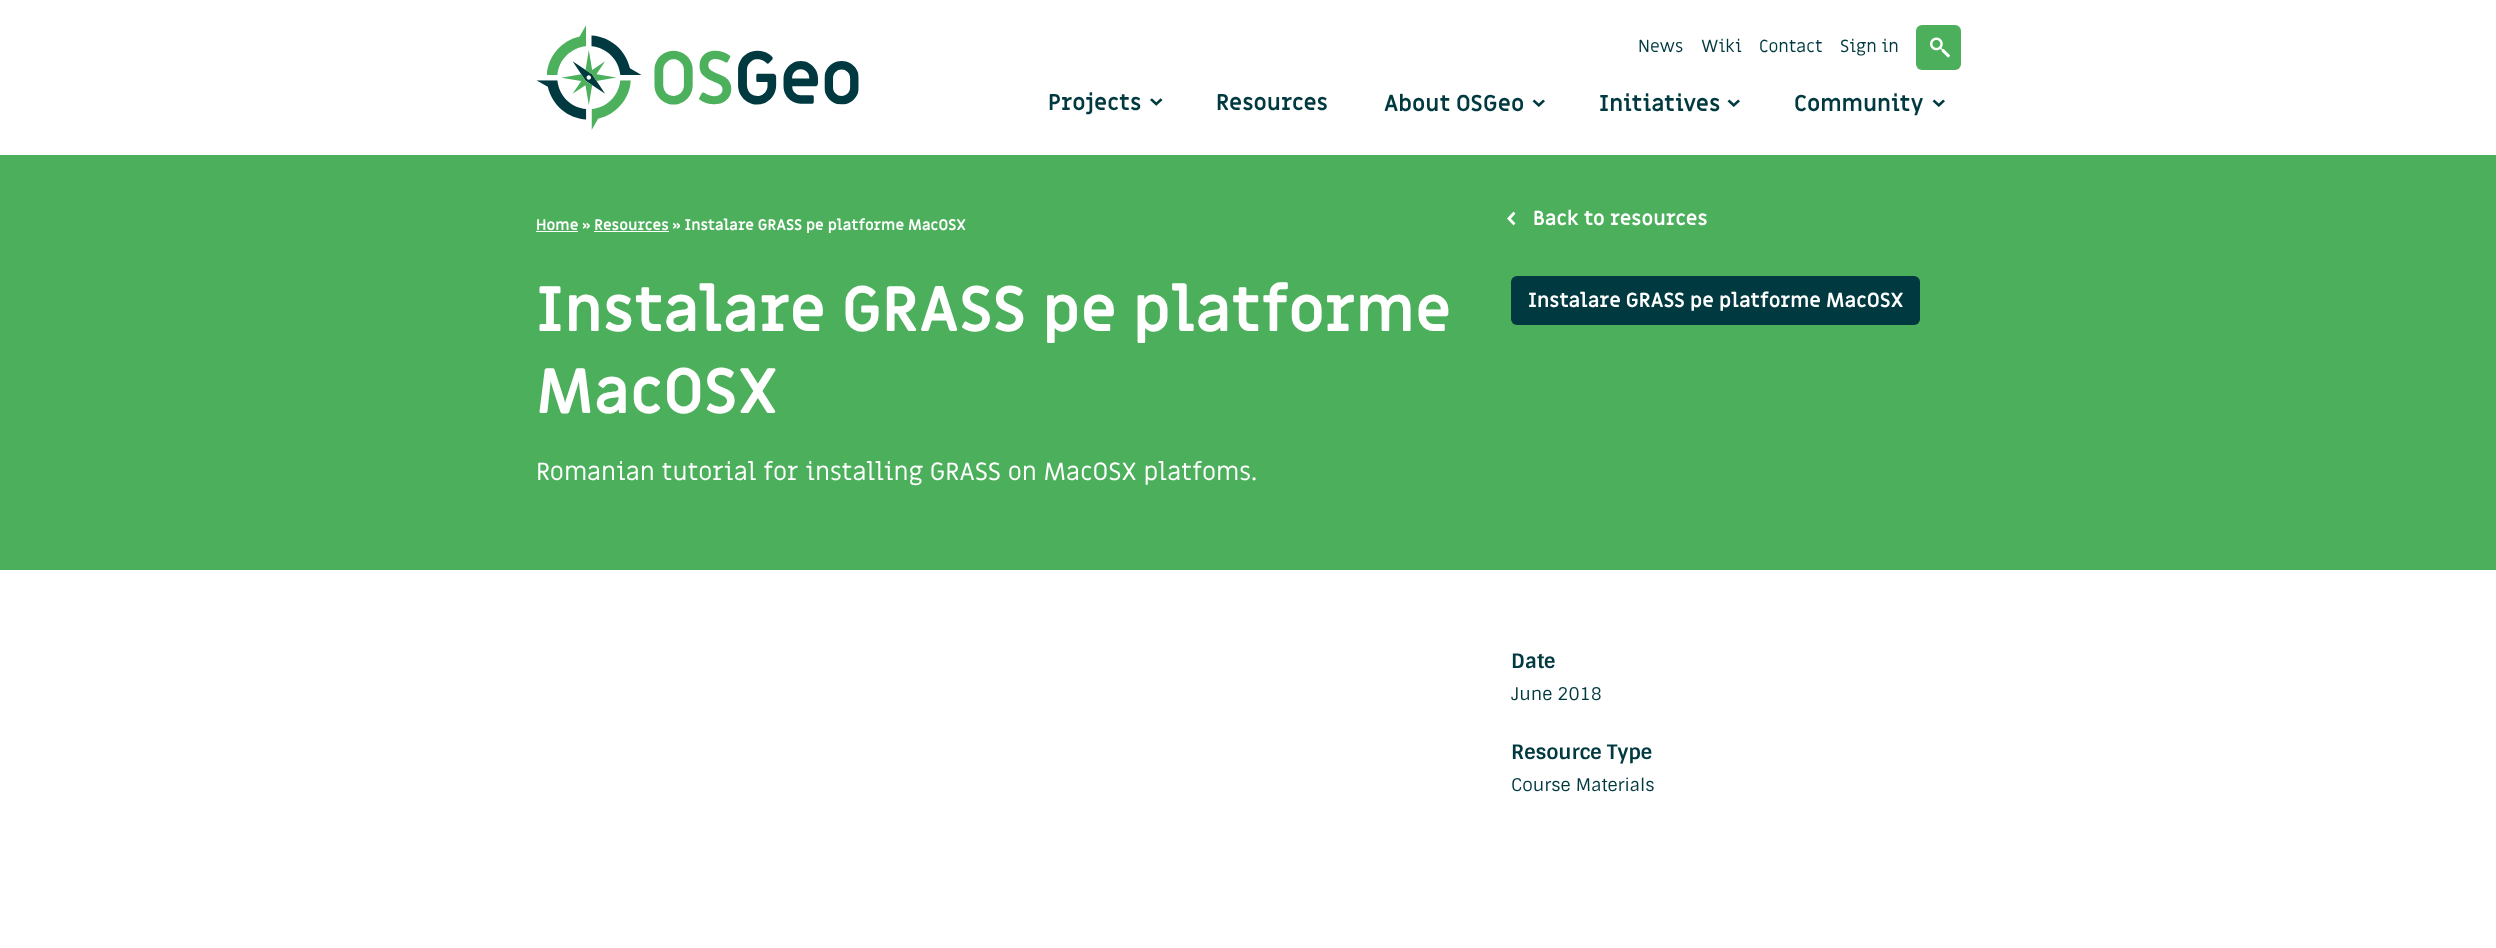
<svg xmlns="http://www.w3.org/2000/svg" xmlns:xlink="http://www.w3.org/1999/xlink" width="2496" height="948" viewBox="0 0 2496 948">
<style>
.cls-1{font:17.5px Miriam Libre;fill:#003a40}
.cls-2{font:bold 22.5px Miriam Libre;fill:#003a40}
.cls-3{font:bold 15px Miriam Libre;fill:#ffffff}
.cls-4{font:bold 62.5px Miriam Libre;fill:#ffffff}
.cls-5{font:25px Miriam Libre;fill:#ffffff}
.cls-6{font:bold 20px Miriam Libre;fill:#ffffff}
.cls-7{font:bold 20px Sintony;fill:#003a40}
.cls-8{font:17.5px Sintony;fill:#003a40}
</style>
<rect width="100%" height="100%" fill="#ffffff"/>
<image xlink:href="image0.png" x="536" y="25" width="323" height="105"/>
<rect fill="#4caf5b" x="1916" y="25" width="45" height="45" rx="6"/>
<image xlink:href="image1.png" x="1930" y="37" width="20" height="21"/>
<image xlink:href="image2.png" x="1150" y="98" width="13" height="8"/>
<image xlink:href="image3.png" x="1532" y="99" width="13" height="8"/>
<image xlink:href="image3.png" x="1727" y="99" width="13" height="8"/>
<image xlink:href="image3.png" x="1932" y="99" width="13" height="8"/>
<rect fill="#4caf5b" x="0" y="155" width="2496" height="415"/>
<rect fill="#ffffff" x="536" y="231" width="42" height="1"/>
<rect fill="#ffffff" x="594" y="231" width="75" height="1"/>
<image xlink:href="image4.png" x="1507" y="211" width="9" height="15"/>
<rect fill="#003a40" x="1511" y="276" width="409" height="49" rx="6"/>
<text class="cls-1" x="1638" y="52">News</text>
<text class="cls-1" x="1701" y="52">Wiki</text>
<text class="cls-1" x="1759" y="52">Contact</text>
<text class="cls-1" x="1840" y="52">Sign in</text>
<text class="cls-2" x="1048" y="110">Projects</text>
<text class="cls-2" x="1216" y="110">Resources</text>
<text class="cls-2" x="1384" y="111">About OSGeo</text>
<text class="cls-2" x="1599" y="111">Initiatives</text>
<text class="cls-2" x="1794" y="111">Community</text>
<text class="cls-3" x="536" y="230">Home » Resources » Instalare GRASS pe platforme MacOSX</text>
<text class="cls-4"><tspan x="536" y="331">Instalare GRASS pe platforme</tspan><tspan x="536" y="413">MacOSX</tspan></text>
<text class="cls-5" x="536" y="480">Romanian tutorial for installing GRASS on MacOSX platfoms.</text>
<text class="cls-6" x="1533" y="225">Back to resources</text>
<text class="cls-6" x="1528" y="307">Instalare GRASS pe platforme MacOSX</text>
<text class="cls-7" x="1511" y="668">Date</text>
<text class="cls-8" x="1511" y="700">June 2018</text>
<text class="cls-7" x="1511" y="759">Resource Type</text>
<text class="cls-8" x="1511" y="791">Course Materials</text>
</svg>
